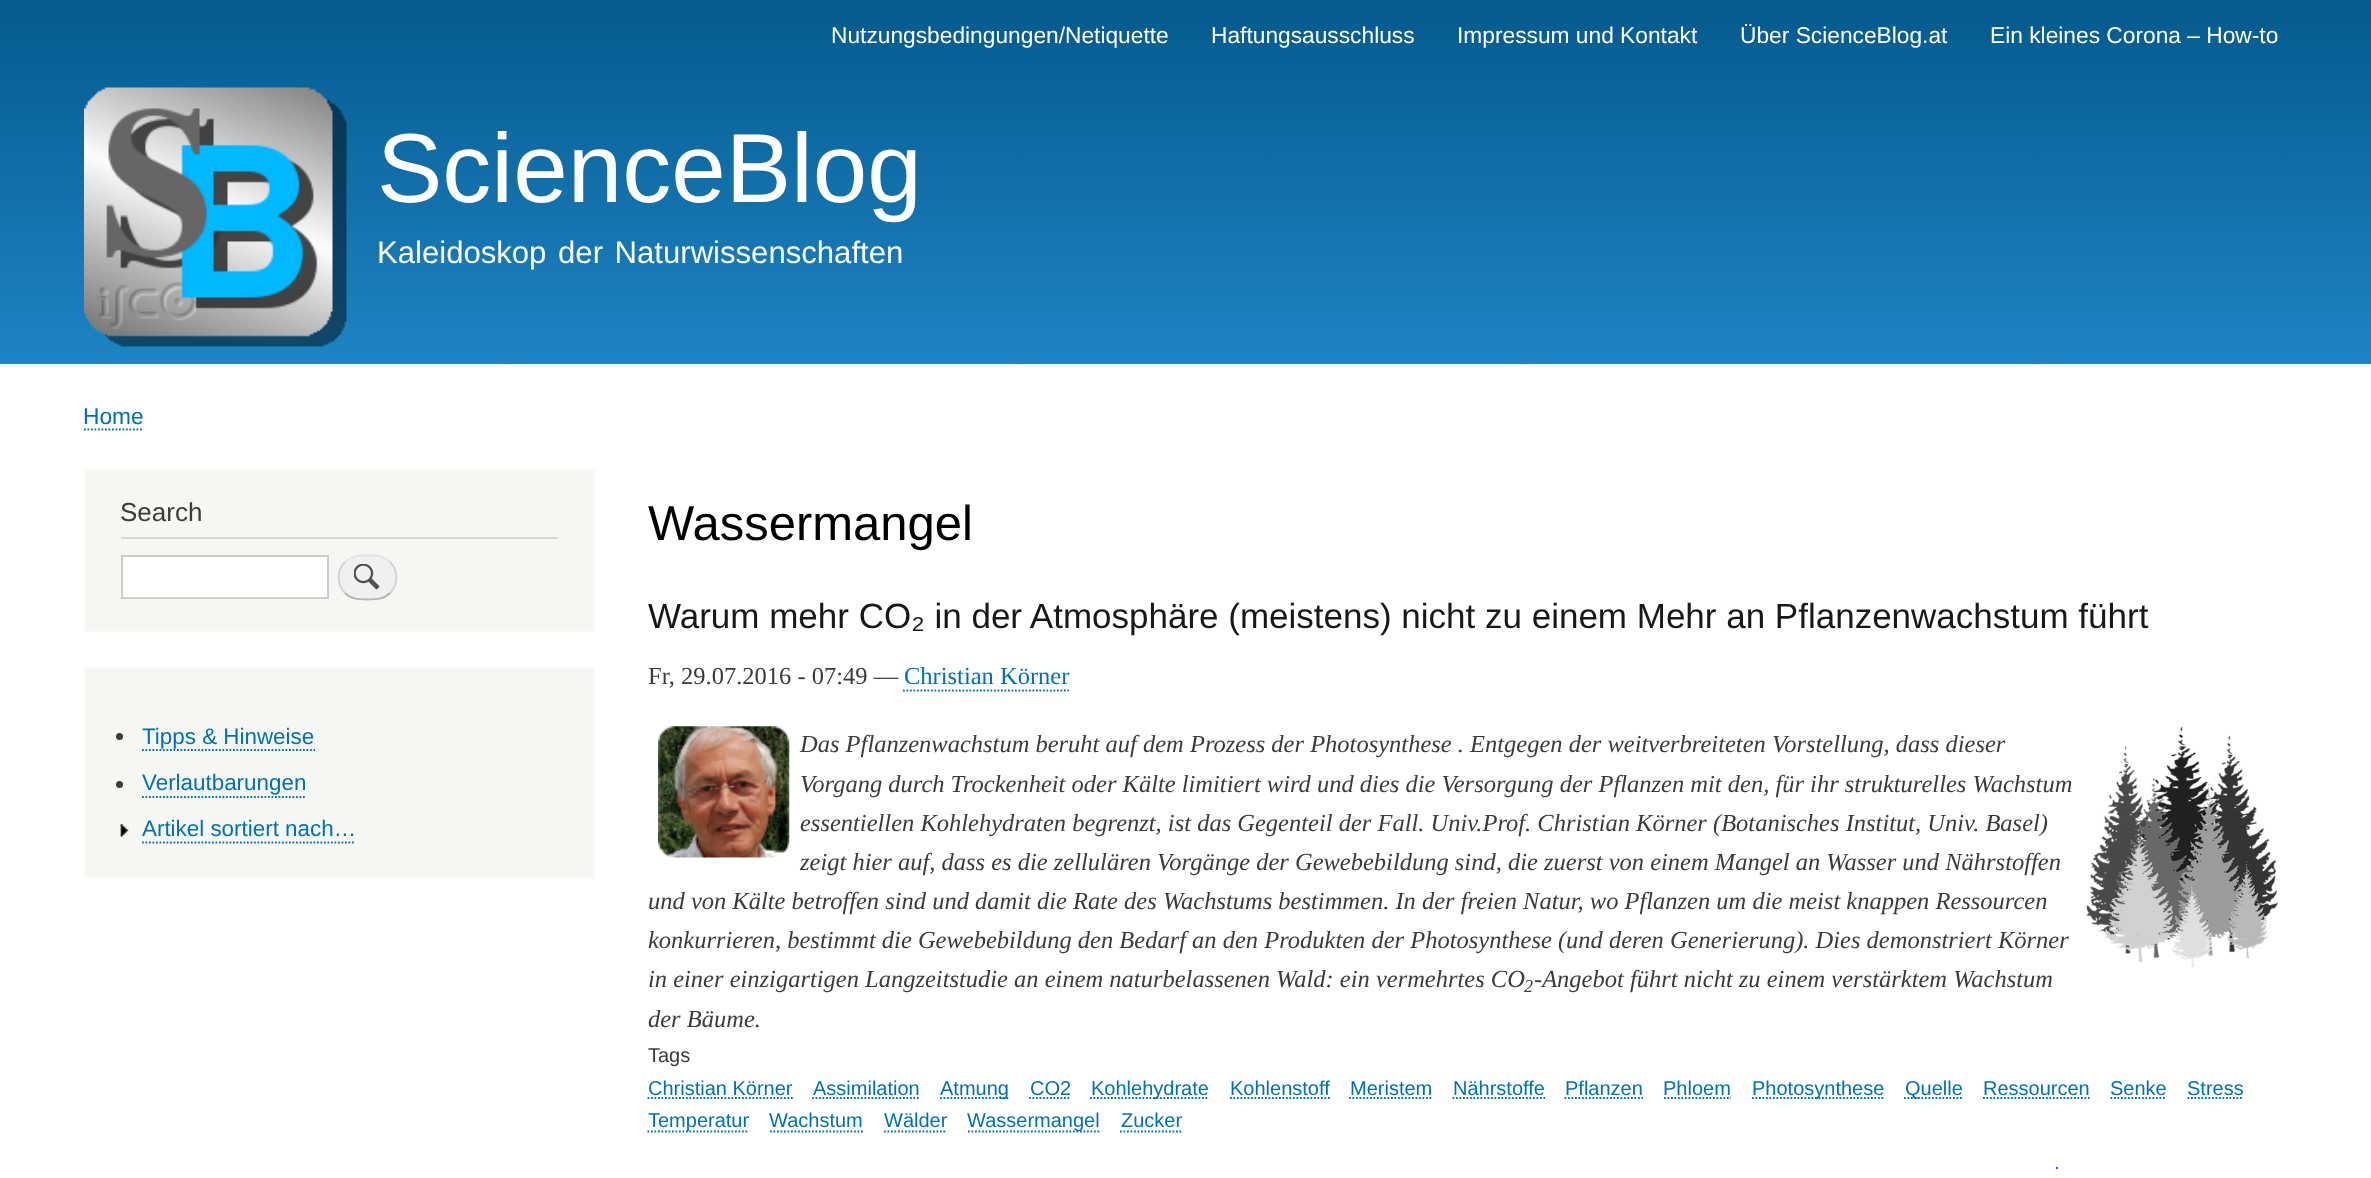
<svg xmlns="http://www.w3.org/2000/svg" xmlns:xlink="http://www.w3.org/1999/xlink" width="2371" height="1178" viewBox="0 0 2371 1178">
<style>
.cls-1{font:22.75px Liberation Sans;fill:#fffeff}
.cls-2{font:98px Liberation Sans;fill:#fffeff}
.cls-3{font:31.1px Liberation Sans;fill:#fffeff}
.cls-4{font:22.75px Liberation Sans;fill:#0071b3}
.cls-5{font:26px Liberation Sans;fill:#3b3b3b}
.cls-6{font:22.4px Liberation Sans;fill:#0071b3}
.cls-7{font:49px Liberation Sans;fill:#000000}
.cls-8{font:35px Liberation Sans;fill:#181818}
.cls-9{font:24.5px Liberation Serif;fill:#3b3b3b}
.cls-10{font:24.5px Liberation Serif;fill:#0071b3}
.cls-11{font:italic 24.5px Liberation Serif;fill:#3b3b3b}
.cls-12{font:italic 18px Liberation Serif;fill:#3b3b3b}
.cls-13{font:20px Liberation Sans;fill:#3b3b3b}
.cls-14{font:20px Liberation Sans;fill:#0071b3}
</style>
<defs>
<linearGradient id="g1" gradientUnits="userSpaceOnUse" x1="1186" y1="0" x2="1186" y2="364"><stop offset="0" stop-color="#055a8e"/><stop offset="1" stop-color="#1d84c3"/></linearGradient>
</defs>
<rect width="100%" height="100%" fill="#ffffff"/>
<rect fill="url(#g1)" x="0" y="0" width="2371" height="364"/>
<image xlink:href="image0.png" x="84" y="87" width="263" height="260"/>
<path fill="none" stroke="#0071b3" stroke-width="1.8" stroke-dasharray="1.75 1.75" d="M84 429.5H143.5"/>
<rect fill="#f6f6f2" stroke="#f9f9f9" stroke-width="2" x="85" y="470" width="509" height="161"/>
<rect fill="#d6d6d6" x="121" y="537" width="437" height="2"/>
<rect fill="#ffffff" stroke="#cccccc" stroke-width="2" x="122" y="556" width="206" height="42"/>
<rect fill="#f0f0f0" x="338" y="555" width="59" height="45" rx="22.5"/>
<image xlink:href="image1.png" x="354" y="564" width="26" height="26"/>
<path fill="none" stroke="#e4e4e4" stroke-width="1.8" d="M345 562C351.5 555.5 359 555.5 367.5 555.5C376 555.5 383.5 555.5 390 562"/>
<path fill="none" stroke="#d2d2d2" stroke-width="1.8" d="M390 562C398.5 570.5 398.5 584.5 390 593"/>
<path fill="none" stroke="#b4b4b4" stroke-width="1.8" d="M390 593C383.5 599.5 376 599.5 367.5 599.5C359 599.5 351.5 599.5 345 593"/>
<path fill="none" stroke="#d2d2d2" stroke-width="1.8" d="M345 593C336.5 584.5 336.5 570.5 345 562"/>
<rect fill="#f6f6f2" stroke="#f9f9f9" stroke-width="2" x="85" y="668" width="509" height="210"/>
<circle fill="#3b3b3b" cx="119.5" cy="736.5" r="3.5"/>
<path fill="none" stroke="#0071b3" stroke-width="1.8" stroke-dasharray="1.75 1.75" d="M142 750H315"/>
<circle fill="#3b3b3b" cx="119.5" cy="784.5" r="3.5"/>
<path fill="none" stroke="#0071b3" stroke-width="1.8" stroke-dasharray="1.75 1.75" d="M142 797H306"/>
<image xlink:href="image2.png" x="120" y="824" width="9" height="13"/>
<path fill="none" stroke="#0071b3" stroke-width="1.8" stroke-dasharray="1.75 1.75" d="M142 842.5H355"/>
<path fill="none" stroke="#0071b3" stroke-width="1.8" stroke-dasharray="1.75 1.75" d="M903 690.5H1069"/>
<image xlink:href="image3.png" x="658" y="726" width="132" height="132"/>
<image xlink:href="image4.png" x="2086" y="727" width="192" height="240"/>
<path fill="none" stroke="#0071b3" stroke-width="1.8" stroke-dasharray="1.75 1.75" d="M647.5 1098H793"/>
<path fill="none" stroke="#0071b3" stroke-width="1.8" stroke-dasharray="1.75 1.75" d="M812 1098H920.5"/>
<path fill="none" stroke="#0071b3" stroke-width="1.8" stroke-dasharray="1.75 1.75" d="M940 1098H1010"/>
<path fill="none" stroke="#0071b3" stroke-width="1.8" stroke-dasharray="1.75 1.75" d="M1029 1098H1071"/>
<path fill="none" stroke="#0071b3" stroke-width="1.8" stroke-dasharray="1.75 1.75" d="M1090 1098H1209"/>
<path fill="none" stroke="#0071b3" stroke-width="1.8" stroke-dasharray="1.75 1.75" d="M1230 1098H1330"/>
<path fill="none" stroke="#0071b3" stroke-width="1.8" stroke-dasharray="1.75 1.75" d="M1349 1098H1433"/>
<path fill="none" stroke="#0071b3" stroke-width="1.8" stroke-dasharray="1.75 1.75" d="M1452.5 1098H1545"/>
<path fill="none" stroke="#0071b3" stroke-width="1.8" stroke-dasharray="1.75 1.75" d="M1564.5 1098H1643"/>
<path fill="none" stroke="#0071b3" stroke-width="1.8" stroke-dasharray="1.75 1.75" d="M1664 1098H1731"/>
<path fill="none" stroke="#0071b3" stroke-width="1.8" stroke-dasharray="1.75 1.75" d="M1752 1098H1885"/>
<path fill="none" stroke="#0071b3" stroke-width="1.8" stroke-dasharray="1.75 1.75" d="M1904 1098H1963.5"/>
<path fill="none" stroke="#0071b3" stroke-width="1.8" stroke-dasharray="1.75 1.75" d="M1983 1098H2089.5"/>
<path fill="none" stroke="#0071b3" stroke-width="1.8" stroke-dasharray="1.75 1.75" d="M2110.5 1098H2166.5"/>
<path fill="none" stroke="#0071b3" stroke-width="1.8" stroke-dasharray="1.75 1.75" d="M2187.5 1098H2243.5"/>
<path fill="none" stroke="#0071b3" stroke-width="1.8" stroke-dasharray="1.75 1.75" d="M647.5 1131.5H749"/>
<path fill="none" stroke="#0071b3" stroke-width="1.8" stroke-dasharray="1.75 1.75" d="M770 1131.5H863"/>
<path fill="none" stroke="#0071b3" stroke-width="1.8" stroke-dasharray="1.75 1.75" d="M884 1131.5H947"/>
<path fill="none" stroke="#0071b3" stroke-width="1.8" stroke-dasharray="1.75 1.75" d="M968 1131.5H1101"/>
<path fill="none" stroke="#0071b3" stroke-width="1.8" stroke-dasharray="1.75 1.75" d="M1120 1131.5H1183"/>
<rect fill="#0071b3" x="2056" y="1167" width="2" height="2"/>
<text class="cls-1" x="831" y="43">Nutzungsbedingungen/Netiquette</text>
<text class="cls-1" x="1211" y="43">Haftungsausschluss</text>
<text class="cls-1" x="1457" y="43">Impressum und Kontakt</text>
<text class="cls-1" x="1740" y="43">Über ScienceBlog.at</text>
<text class="cls-1" x="1990" y="43">Ein kleines Corona – How-to</text>
<text class="cls-2" x="377" y="202">ScienceBlog</text>
<text class="cls-3" x="377" y="263" word-spacing="3">Kaleidoskop der Naturwissenschaften</text>
<text class="cls-4" x="83" y="424">Home</text>
<text class="cls-5" x="120" y="521">Search</text>
<text class="cls-6" x="142" y="744">Tipps &amp; Hinweise</text>
<text class="cls-6" x="142" y="790">Verlautbarungen</text>
<text class="cls-6" x="142" y="836">Artikel sortiert nach…</text>
<text class="cls-7" x="648" y="540">Wassermangel</text>
<text class="cls-8" x="648" y="628">Warum mehr CO₂ in der Atmosphäre (meistens) nicht zu einem Mehr an Pflanzenwachstum führt</text>
<text class="cls-9" x="648" y="684">Fr, 29.07.2016 - 07:49 —</text>
<text class="cls-10" x="904" y="684">Christian Körner</text>
<text class="cls-11"><tspan x="800" y="752">Das Pflanzenwachstum beruht auf dem Prozess der Photosynthese . Entgegen der weitverbreiteten Vorstellung, dass dieser</tspan><tspan x="800" y="792">Vorgang durch Trockenheit oder Kälte limitiert wird und dies die Versorgung der Pflanzen mit den, für ihr strukturelles Wachstum</tspan><tspan x="800" y="831">essentiellen Kohlehydraten begrenzt, ist das Gegenteil der Fall. Univ.Prof. Christian Körner (Botanisches Institut, Univ. Basel)</tspan><tspan x="800" y="870">zeigt hier auf, dass es die zellulären Vorgänge der Gewebebildung sind, die zuerst von einem Mangel an Wasser und Nährstoffen</tspan></text>
<text class="cls-11"><tspan x="648" y="909">und von Kälte betroffen sind und damit die Rate des Wachstums bestimmen. In der freien Natur, wo Pflanzen um die meist knappen Ressourcen</tspan><tspan x="648" y="948">konkurrieren, bestimmt die Gewebebildung den Bedarf an den Produkten der Photosynthese (und deren Generierung). Dies demonstriert Körner</tspan><tspan x="648" y="987">in einer einzigartigen Langzeitstudie an einem naturbelassenen Wald: ein vermehrtes CO</tspan></text>
<text class="cls-12" x="1524" y="992">2</text>
<text class="cls-11" x="1534" y="987">-Angebot führt nicht zu einem verstärktem Wachstum</text>
<text class="cls-11" x="648" y="1027">der Bäume.</text>
<text class="cls-13" x="648" y="1062">Tags</text>
<text class="cls-14" x="648" y="1095">Christian Körner</text>
<text class="cls-14" x="813" y="1095">Assimilation</text>
<text class="cls-14" x="940" y="1095">Atmung</text>
<text class="cls-14" x="1030" y="1095">CO2</text>
<text class="cls-14" x="1091" y="1095">Kohlehydrate</text>
<text class="cls-14" x="1230" y="1095">Kohlenstoff</text>
<text class="cls-14" x="1350" y="1095">Meristem</text>
<text class="cls-14" x="1453" y="1095">Nährstoffe</text>
<text class="cls-14" x="1565" y="1095">Pflanzen</text>
<text class="cls-14" x="1663" y="1095">Phloem</text>
<text class="cls-14" x="1752" y="1095">Photosynthese</text>
<text class="cls-14" x="1905" y="1095">Quelle</text>
<text class="cls-14" x="1983" y="1095">Ressourcen</text>
<text class="cls-14" x="2110" y="1095">Senke</text>
<text class="cls-14" x="2187" y="1095">Stress</text>
<text class="cls-14" x="648" y="1127">Temperatur</text>
<text class="cls-14" x="769" y="1127">Wachstum</text>
<text class="cls-14" x="884" y="1127">Wälder</text>
<text class="cls-14" x="967" y="1127">Wassermangel</text>
<text class="cls-14" x="1121" y="1127">Zucker</text>
</svg>
